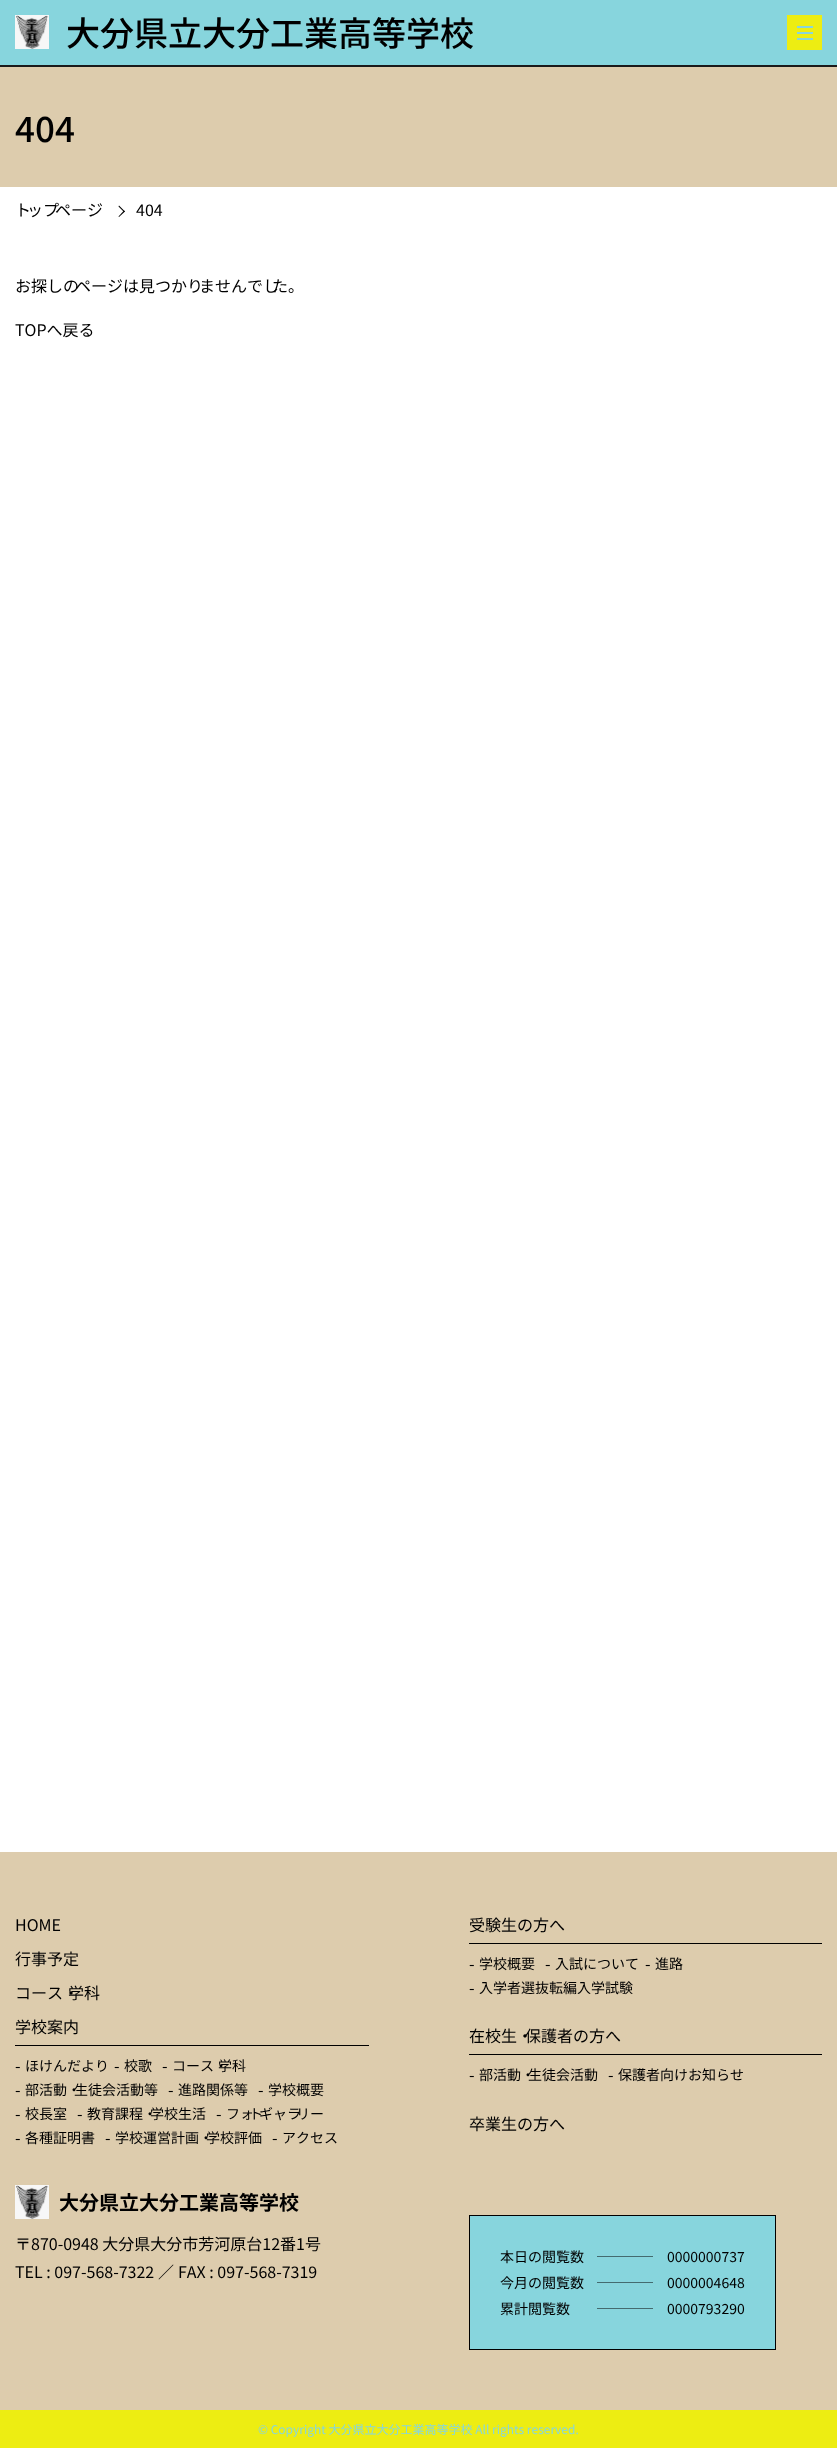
<svg xmlns="http://www.w3.org/2000/svg" xmlns:xlink="http://www.w3.org/1999/xlink" width="837" height="2448" viewBox="0 0 837 2448">
<style>*{font-kerning:none!important;font-variant-ligatures:none!important}</style>
<style>
.cls-1{font:500 34px Noto Sans JP;fill:#000000}
.cls-2{font:500 35px Noto Sans JP;fill:#000000}
.cls-3{font:16px Noto Sans JP;fill:#000000}
.cls-4{font:14px Noto Sans JP;fill:#000000}
.cls-5{font:bold 20px Noto Sans JP;fill:#000000}
.cls-6{font:16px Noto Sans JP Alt;fill:#000000}
.cls-7{font:12px Noto Sans JP;fill:#87d5dd}
</style>
<rect width="100%" height="100%" fill="#ffffff"/>
<rect fill="#1a1a1a" x="0" y="65" width="837" height="2"/>
<rect fill="#87d5dd" x="0" y="0" width="837" height="65"/>
<image xlink:href="image0.png" x="15" y="15" width="34" height="34"/>
<rect fill="#eded12" x="787" y="15" width="35" height="35"/>
<rect fill="#87d5dd" x="797" y="26" width="16" height="2"/>
<rect fill="#87d5dd" x="797" y="32" width="16" height="2"/>
<rect fill="#87d5dd" x="797" y="38" width="16" height="2"/>
<rect fill="#ddccad" x="0" y="67" width="837" height="120"/>
<path fill="#000000" d="M118.5 206.5L119 205.5L125 211.5L124 212Z"/>
<path fill="#000000" d="M118.5 216.5L124 210.5L125 211.5L119 217Z"/>
<rect fill="#ddccad" x="0" y="1852" width="837" height="558"/>
<rect fill="#000000" x="15" y="2045" width="354" height="1"/>
<rect fill="#000000" x="469" y="1943" width="353" height="1"/>
<rect fill="#000000" x="469" y="2054" width="353" height="1"/>
<image xlink:href="image0.png" x="15" y="2185" width="34" height="34"/>
<rect fill="#87d5dd" stroke="#000000" x="469.5" y="2215.5" width="306" height="134"/>
<rect fill="#446b6f" x="597" y="2256" width="56" height="1"/>
<rect fill="#446b6f" x="597" y="2282" width="56" height="1"/>
<rect fill="#446b6f" x="597" y="2308" width="56" height="1"/>
<rect fill="#eded12" x="0" y="2410" width="837" height="38"/>
<text class="cls-1" x="66" y="46">大分県立大分工業高等学校</text>
<text class="cls-2" x="15" y="142">404</text>
<text class="cls-3" x="15" y="216">ト</text>
<text class="cls-3" x="27" y="216">ップ</text>
<text class="cls-3" x="55" y="216">ページ</text>
<text class="cls-3" x="136" y="216">404</text>
<text class="cls-3" x="15" y="292">お探しの</text>
<text class="cls-3" x="75" y="292">ページは見つかり</text>
<text class="cls-3" x="199" y="292">ませんでし</text>
<text class="cls-3" x="272" y="292">た。</text>
<text class="cls-3" x="15" y="336">TOPへ戻る</text>
<text class="cls-3" x="15" y="1931">HOME</text>
<text class="cls-3" x="15" y="1965">行事予定</text>
<text class="cls-3" x="15" y="1999">コース・</text>
<text class="cls-3" x="68" y="1999">学科</text>
<text class="cls-3" x="15" y="2033">学校案内</text>
<text class="cls-3" x="15" y="2072">-</text>
<text class="cls-4" x="25" y="2071">ほけんだより</text>
<text class="cls-3" x="114" y="2072">-</text>
<text class="cls-4" x="124" y="2071">校歌</text>
<text class="cls-3" x="162" y="2072">-</text>
<text class="cls-4" x="172" y="2071">コース・</text>
<text class="cls-4" x="218" y="2071">学科</text>
<text class="cls-3" x="15" y="2096">-</text>
<text class="cls-4" x="25" y="2095">部活動・</text>
<text class="cls-4" x="74" y="2095">生徒会活動等</text>
<text class="cls-3" x="168" y="2096">-</text>
<text class="cls-4" x="178" y="2095">進路関係等</text>
<text class="cls-3" x="258" y="2096">-</text>
<text class="cls-4" x="268" y="2095">学校概要</text>
<text class="cls-3" x="15" y="2120">-</text>
<text class="cls-4" x="25" y="2119">校長室</text>
<text class="cls-3" x="77" y="2120">-</text>
<text class="cls-4" x="87" y="2119">教育課程・</text>
<text class="cls-4" x="150" y="2119">学校生活</text>
<text class="cls-3" x="216" y="2120">-</text>
<text class="cls-4" x="226" y="2119">フォ</text>
<text class="cls-4" x="249" y="2119">ト</text>
<text class="cls-4" x="259" y="2119">ギャラ</text>
<text class="cls-4" x="296" y="2119">リー</text>
<text class="cls-3" x="15" y="2144">-</text>
<text class="cls-4" x="25" y="2143">各種証明書</text>
<text class="cls-3" x="105" y="2144">-</text>
<text class="cls-4" x="115" y="2143">学校運営計画・</text>
<text class="cls-4" x="206" y="2143">学校評価</text>
<text class="cls-3" x="272" y="2144">-</text>
<text class="cls-4" x="282" y="2143">アクセス</text>
<text class="cls-3" x="469" y="1931">受験生の方へ</text>
<text class="cls-3" x="469" y="1970">-</text>
<text class="cls-4" x="479" y="1969">学校概要</text>
<text class="cls-3" x="545" y="1970">-</text>
<text class="cls-4" x="555" y="1969">入試について</text>
<text class="cls-3" x="645" y="1970">-</text>
<text class="cls-4" x="655" y="1969">進路</text>
<text class="cls-3" x="469" y="1994">-</text>
<text class="cls-4" x="479" y="1993">入学者選抜転編入学試験</text>
<text class="cls-3" x="469" y="2042">在校生・</text>
<text class="cls-3" x="525" y="2042">保護者の方へ</text>
<text class="cls-3" x="469" y="2081">-</text>
<text class="cls-4" x="479" y="2080">部活動・</text>
<text class="cls-4" x="528" y="2080">生徒会活動</text>
<text class="cls-3" x="608" y="2081">-</text>
<text class="cls-4" x="618" y="2080">保護者向けお知らせ</text>
<text class="cls-3" x="469" y="2130">卒業生の方へ</text>
<text class="cls-5" x="59" y="2210">大分県立大分工業高等学校</text>
<text class="cls-6" x="15" y="2250">〒870-0948 大分県大分市芳河原台12番1号</text>
<text class="cls-3" x="15" y="2278">TEL : 097-568-7322</text>
<text class="cls-3" x="158" y="2278">／</text>
<text class="cls-3" x="178" y="2278">FAX : 097-568-7319</text>
<text class="cls-4" x="500" y="2262">本日の閲覧数</text>
<text class="cls-4" x="667" y="2262">0000000737</text>
<text class="cls-4" x="500" y="2288">今月の閲覧数</text>
<text class="cls-4" x="667" y="2288">0000004648</text>
<text class="cls-4" x="500" y="2314">累計閲覧数</text>
<text class="cls-4" x="667" y="2314">0000793290</text>
<text class="cls-7" x="258" y="2434">© Copyright 大分県立大分工業高等学校 All rights reserved.</text>
</svg>
